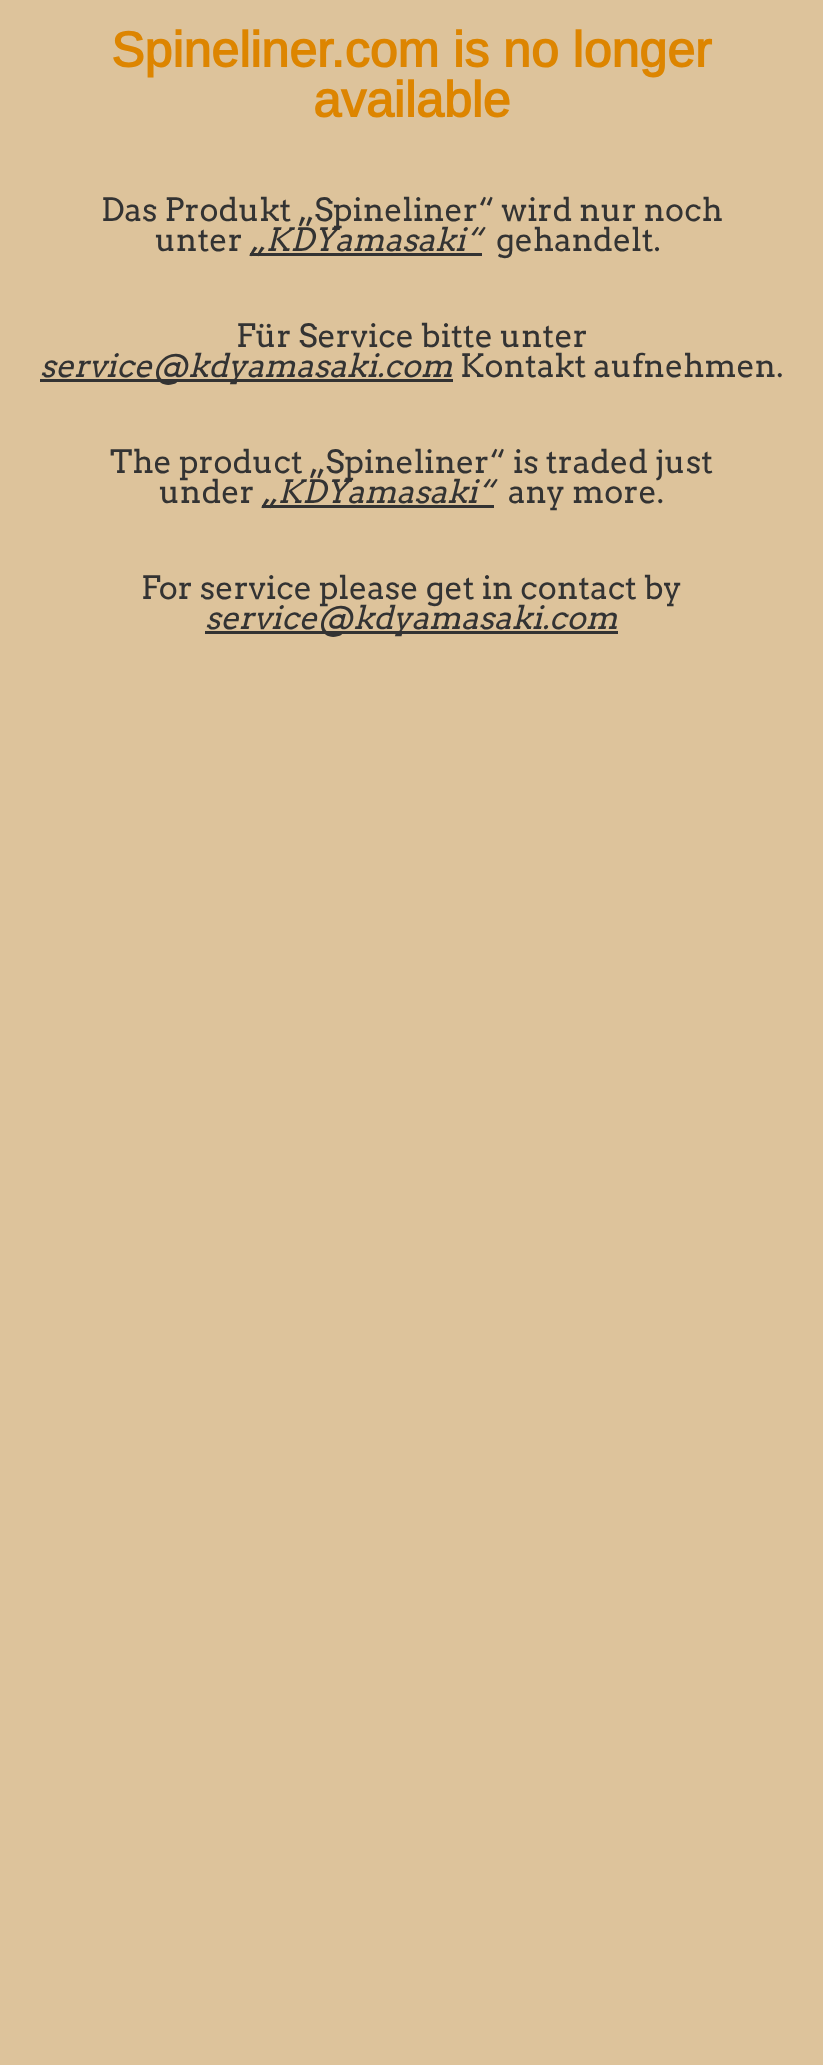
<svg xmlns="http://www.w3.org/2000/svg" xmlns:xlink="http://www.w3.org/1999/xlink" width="823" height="2065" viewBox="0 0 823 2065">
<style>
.cls-1{font:bold 50px Arimo;fill:#dd8500}
.cls-2{font:32px Arvo;fill:#333333}
.cls-3{font:italic 32px Arvo;fill:#333333}
</style>
<rect width="100%" height="100%" fill="#ddc39b"/>
<rect fill="#333333" x="250" y="253" width="232" height="3"/>
<rect fill="#333333" x="40" y="379" width="413" height="3"/>
<rect fill="#333333" x="262" y="505" width="232" height="3"/>
<rect fill="#333333" x="205" y="631" width="413" height="3"/>
<text class="cls-1" x="111" y="67">Spineliner.com is no longer</text>
<text class="cls-1" x="313" y="117">available</text>
<text class="cls-2" x="101" y="221">Das Produkt „Spineliner“ wird nur noch</text>
<text class="cls-2" x="155" y="251">unter</text>
<text class="cls-3" x="250" y="251">„KDYamasaki“</text>
<text class="cls-2" x="496" y="251">gehandelt.</text>
<text class="cls-2" x="236" y="347">Für Service bitte unter</text>
<text class="cls-3" x="40" y="377">service@kdyamasaki.com</text>
<text class="cls-2" x="460" y="377">Kontakt aufnehmen.</text>
<text class="cls-2" x="110" y="473">The product „Spineliner“ is traded just</text>
<text class="cls-2" x="159" y="503">under</text>
<text class="cls-3" x="262" y="503">„KDYamasaki“</text>
<text class="cls-2" x="508" y="503">any more.</text>
<text class="cls-2" x="141" y="599">For service please get in contact by</text>
<text class="cls-3" x="205" y="629">service@kdyamasaki.com</text>
</svg>
